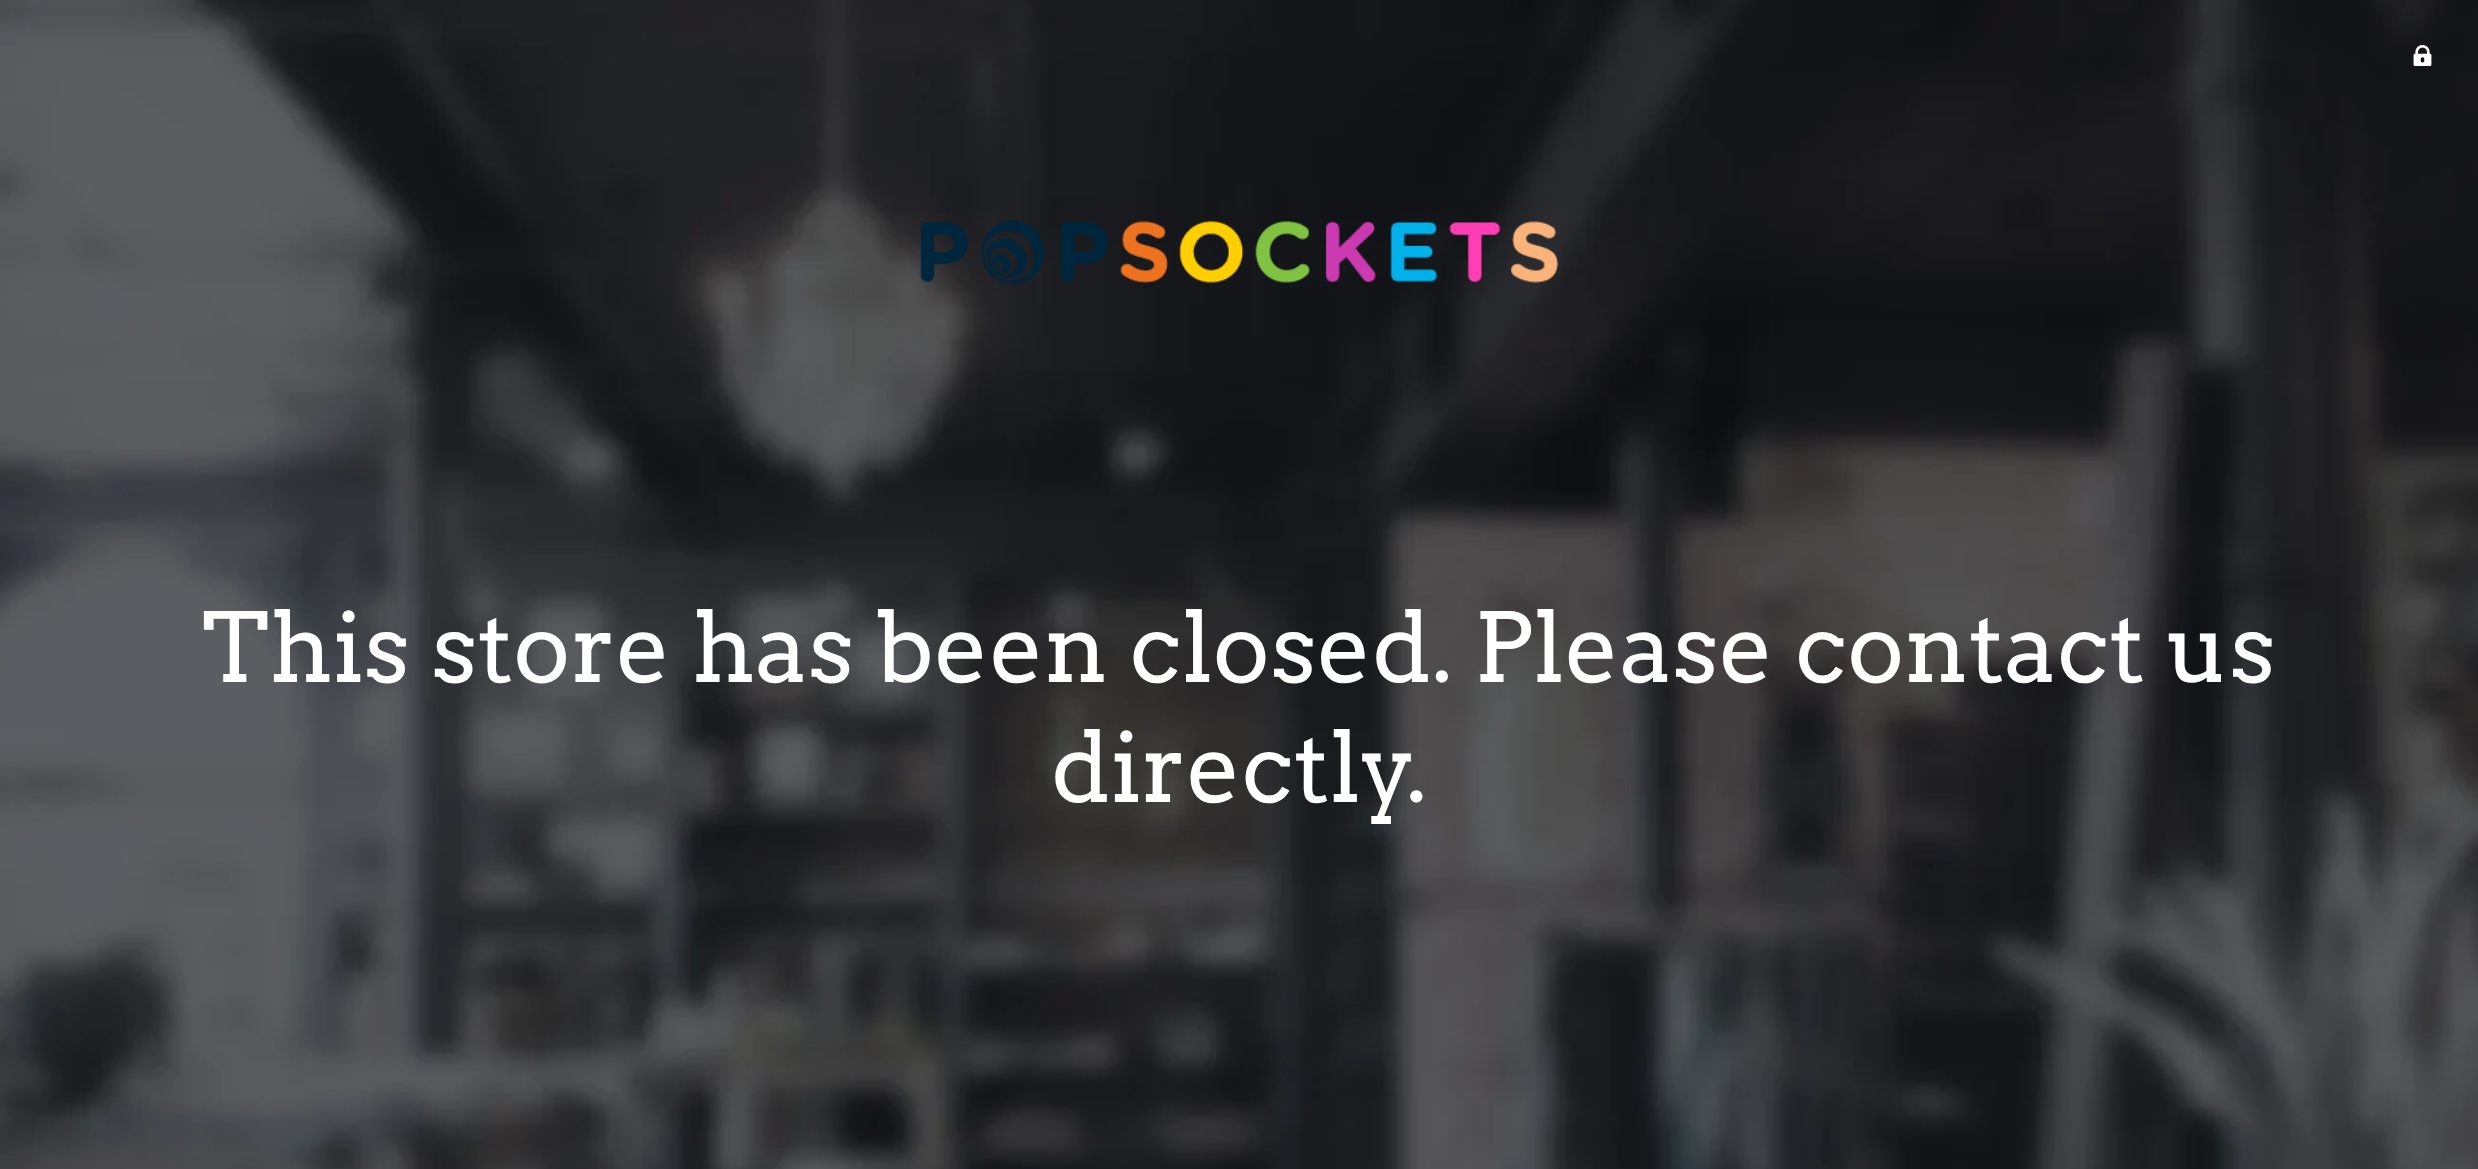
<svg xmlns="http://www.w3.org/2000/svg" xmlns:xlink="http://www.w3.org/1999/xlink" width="2478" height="1169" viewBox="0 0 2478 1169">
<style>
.cls-1{font:96px Arvo;fill:#ffffff}
</style>
<rect width="100%" height="100%" fill="#ffffff"/>
<image xlink:href="image0.png" x="0" y="0" width="2478" height="1169"/>
<image xlink:href="image1.png" x="2413" y="45" width="19" height="21"/>
<image xlink:href="image2.png" x="920" y="220" width="639" height="64"/>
<text class="cls-1" x="202" y="682">This store has been closed. Please contact us</text>
<text class="cls-1" x="1051" y="802">directly.</text>
</svg>
